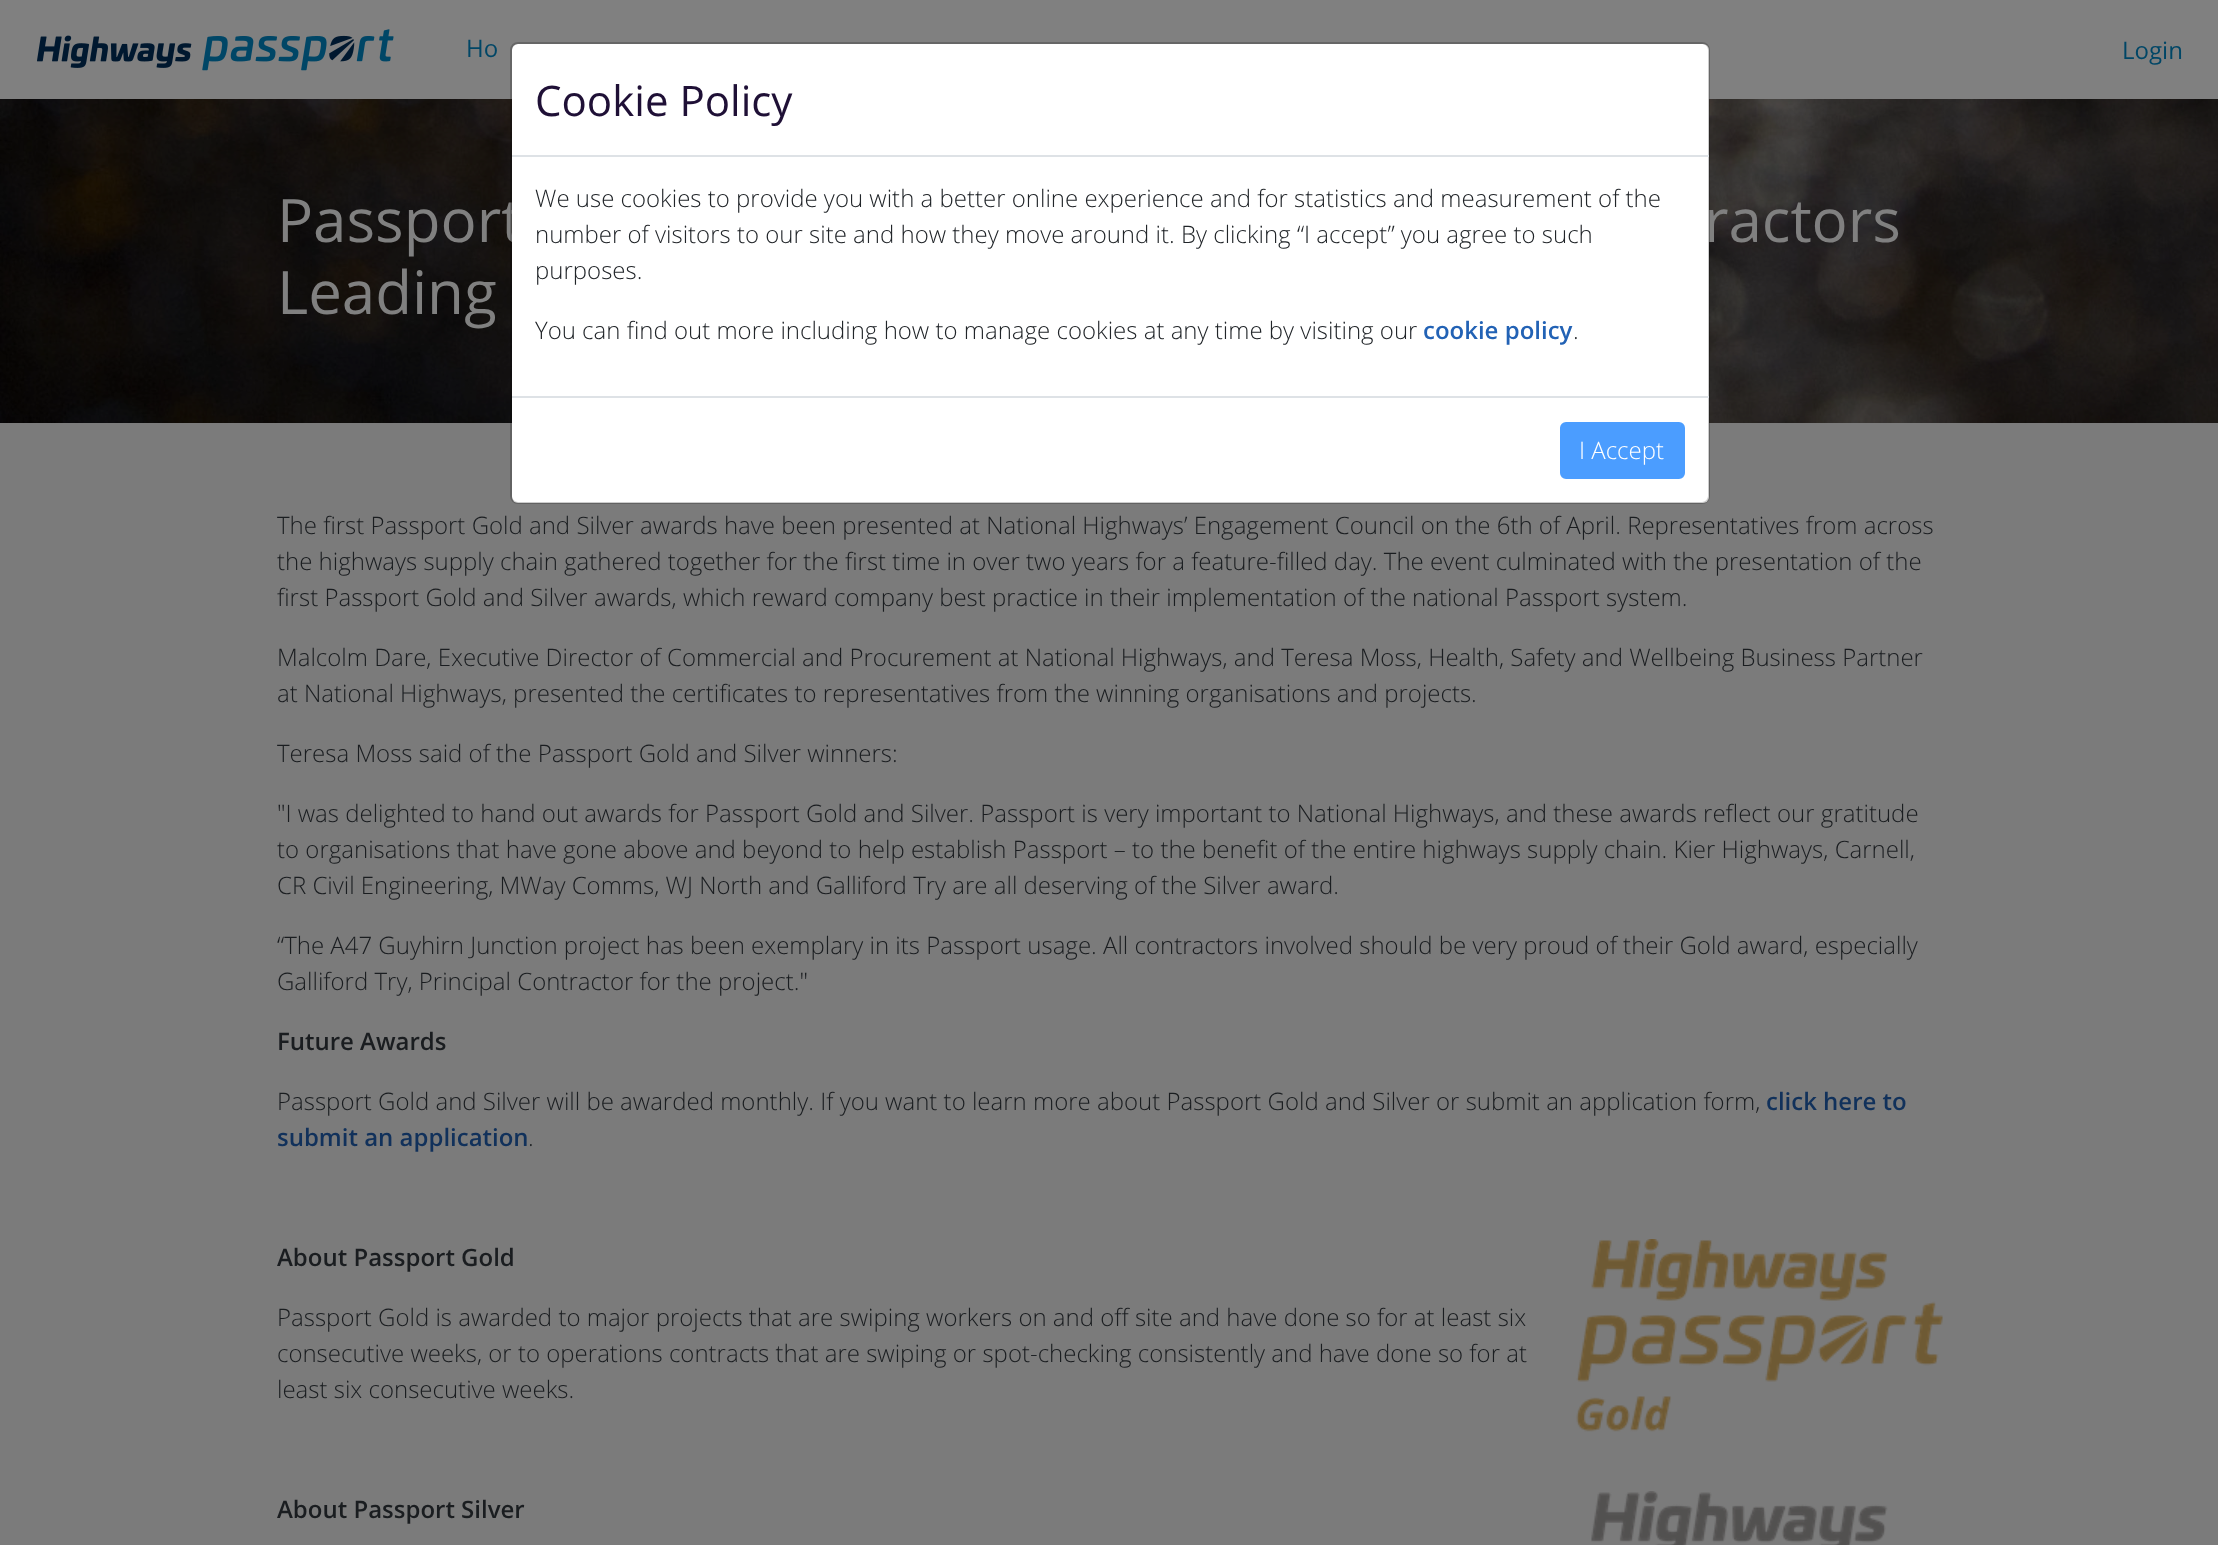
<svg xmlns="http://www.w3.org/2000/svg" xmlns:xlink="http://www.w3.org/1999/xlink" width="2218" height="1545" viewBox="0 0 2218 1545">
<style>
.cls-1{font:24px Open Sans;fill:#004666}
.cls-2{font:60px Open Sans;fill:#808080}
.cls-3{font:300 24px Open Sans;fill:#212529}
.cls-4{font:600 24px Open Sans;fill:#2262b5}
.cls-5{font:300 24px Open Sans;fill:#ffffff}
.cls-6{font:42px Open Sans;fill:#1f1036}
.cls-7{font:300 24px Open Sans;fill:#1a1d20}
.cls-8{font:600 24px Open Sans;fill:#1a1d20}
.cls-9{font:600 24px Open Sans;fill:#11315b}
</style>
<rect width="100%" height="100%" fill="#7b7b7b"/>
<rect fill="#808080" x="0" y="0" width="2218" height="99"/>
<image xlink:href="image0.png" x="37" y="29" width="357" height="42"/>
<image xlink:href="image1.png" x="0" y="99" width="2218" height="324"/>
<image xlink:href="image2.png" x="1576" y="1239" width="367" height="193"/>
<image xlink:href="image3.png" x="1591" y="1491" width="297" height="54"/>
<text class="cls-1" x="466" y="57">Ho</text>
<text class="cls-1" x="2122" y="59">Login</text>
<text class="cls-2" x="277" y="242">Passport</text>
<rect fill="#ffffff" x="512" y="44" width="1197" height="459" rx="6"/>
<text class="cls-2" x="1704" y="242">ractors</text>
<rect fill="none" stroke="#000000" stroke-opacity="0.2" stroke-width="2" x="511" y="43" width="1198" height="460" rx="7"/>
<text class="cls-3" x="1573" y="339">.</text>
<text class="cls-4" x="1423" y="339">cookie policy</text>
<text class="cls-3" x="535" y="339">You can find out more including how to manage cookies at any time by visiting our</text>
<text class="cls-3" x="535" y="279">purposes.</text>
<text class="cls-3" x="535" y="243">number of visitors to our site and how they move around it. By clicking “I accept” you agree to such</text>
<text class="cls-3" x="535" y="207">We use cookies to provide you with a better online experience and for statistics and measurement of the</text>
<rect fill="#4b9dff" stroke="#4b9dff" stroke-width="2" x="1561" y="423" width="123" height="55" rx="5"/>
<text class="cls-5" x="1579" y="459">I Accept</text>
<rect fill="#dee2e6" x="512" y="396" width="1197" height="2"/>
<text class="cls-6" x="535" y="116">Cookie Policy</text>
<rect fill="#dee2e6" x="512" y="155" width="1197" height="2"/>
<text class="cls-2" x="277" y="314">Leading</text>
<text class="cls-7"><tspan x="277" y="534">The first Passport Gold and Silver awards have been presented at National Highways’ Engagement Council on the 6th of April. Representatives from across</tspan><tspan x="277" y="570">the highways supply chain gathered together for the first time in over two years for a feature-filled day. The event culminated with the presentation of the</tspan><tspan x="277" y="606">first Passport Gold and Silver awards, which reward company best practice in their implementation of the national Passport system.</tspan></text>
<text class="cls-7"><tspan x="277" y="666">Malcolm Dare, Executive Director of Commercial and Procurement at National Highways, and Teresa Moss, Health, Safety and Wellbeing Business Partner</tspan><tspan x="277" y="702">at National Highways, presented the certificates to representatives from the winning organisations and projects.</tspan></text>
<text class="cls-7" x="277" y="762">Teresa Moss said of the Passport Gold and Silver winners:</text>
<text class="cls-7"><tspan x="277" y="822">"I was delighted to hand out awards for Passport Gold and Silver. Passport is very important to National Highways, and these awards reflect our gratitude</tspan><tspan x="277" y="858">to organisations that have gone above and beyond to help establish Passport – to the benefit of the entire highways supply chain. Kier Highways, Carnell,</tspan><tspan x="277" y="894">CR Civil Engineering, MWay Comms, WJ North and Galliford Try are all deserving of the Silver award.</tspan></text>
<text class="cls-7"><tspan x="277" y="954">“The A47 Guyhirn Junction project has been exemplary in its Passport usage. All contractors involved should be very proud of their Gold award, especially</tspan><tspan x="277" y="990">Galliford Try, Principal Contractor for the project."</tspan></text>
<text class="cls-8" x="277" y="1050">Future Awards</text>
<text class="cls-7" x="277" y="1110">Passport Gold and Silver will be awarded monthly. If you want to learn more about Passport Gold and Silver or submit an application form,</text>
<text class="cls-9" x="1766" y="1110">click here to</text>
<text class="cls-9" x="277" y="1146">submit an application</text>
<text class="cls-7" x="528" y="1146">.</text>
<text class="cls-8" x="277" y="1266">About Passport Gold</text>
<text class="cls-7"><tspan x="277" y="1326">Passport Gold is awarded to major projects that are swiping workers on and off site and have done so for at least six</tspan><tspan x="277" y="1362">consecutive weeks, or to operations contracts that are swiping or spot-checking consistently and have done so for at</tspan><tspan x="277" y="1398">least six consecutive weeks.</tspan></text>
<text class="cls-8" x="277" y="1518">About Passport Silver</text>
</svg>
